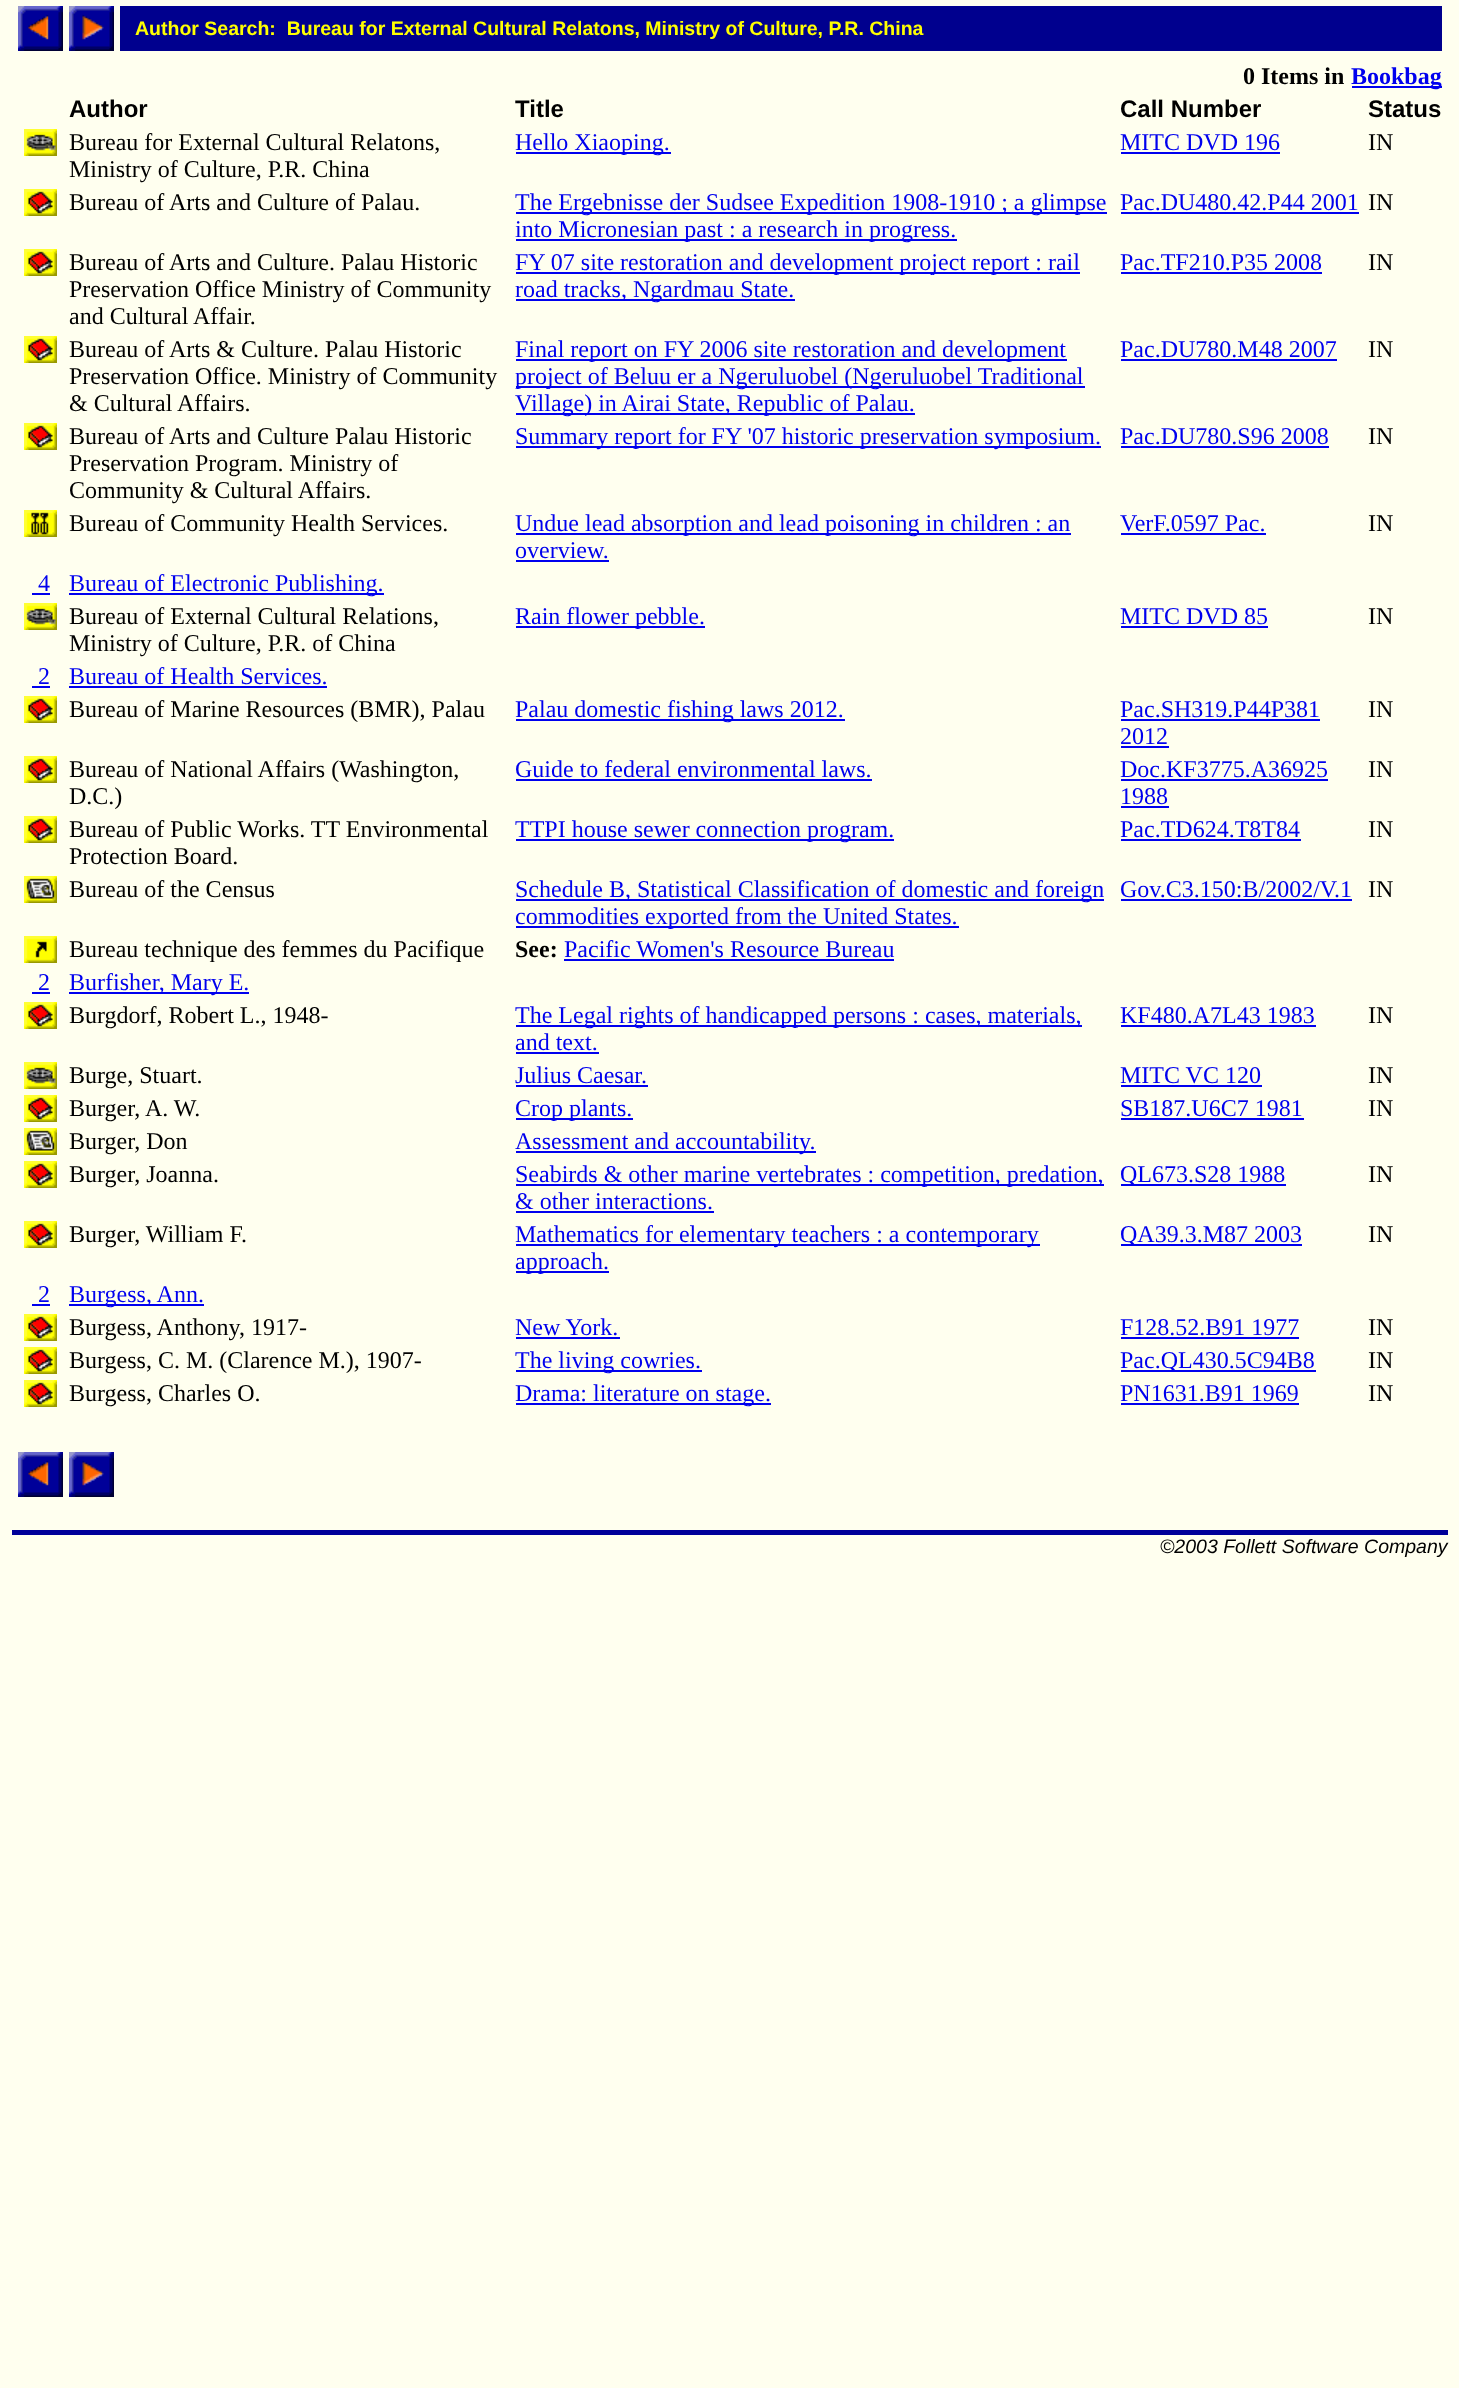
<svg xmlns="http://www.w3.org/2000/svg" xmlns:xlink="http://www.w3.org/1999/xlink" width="1459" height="2388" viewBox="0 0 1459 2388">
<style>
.cls-1{font:bold 19.5px Liberation Sans;fill:#ffff00}
.cls-2{font:bold 24px Liberation Serif;fill:#000000}
.cls-3{font:bold 24px Liberation Serif;fill:#0000ee}
.cls-4{font:bold 24px Liberation Sans;fill:#000000}
.cls-5{font:24px Liberation Serif;fill:#000000}
.cls-6{font:24px Liberation Serif;fill:#0000ee}
.cls-7{font:italic 19.5px Liberation Sans;fill:#000000}
</style>
<rect width="100%" height="100%" fill="#ffffef"/>
<image xlink:href="image0.png" x="18" y="6" width="45" height="45"/>
<image xlink:href="image1.png" x="69" y="6" width="45" height="45"/>
<rect fill="#00008e" x="120" y="6" width="1322" height="45"/>
<rect fill="#0000ee" x="1352" y="86" width="90" height="2"/>
<image xlink:href="image2.png" x="24" y="129" width="33" height="27"/>
<rect fill="#0000ee" x="516" y="152" width="155" height="2"/>
<rect fill="#0000ee" x="1121" y="152" width="159" height="2"/>
<image xlink:href="image3.png" x="24" y="189" width="33" height="27"/>
<rect fill="#0000ee" x="516" y="212" width="591" height="2"/>
<rect fill="#0000ee" x="516" y="239" width="441" height="2"/>
<rect fill="#0000ee" x="1121" y="212" width="238" height="2"/>
<image xlink:href="image3.png" x="24" y="249" width="33" height="27"/>
<rect fill="#0000ee" x="516" y="272" width="564" height="2"/>
<rect fill="#0000ee" x="516" y="299" width="279" height="2"/>
<rect fill="#0000ee" x="1121" y="272" width="201" height="2"/>
<image xlink:href="image3.png" x="24" y="336" width="33" height="27"/>
<rect fill="#0000ee" x="516" y="359" width="551" height="2"/>
<rect fill="#0000ee" x="516" y="386" width="569" height="2"/>
<rect fill="#0000ee" x="516" y="413" width="399" height="2"/>
<rect fill="#0000ee" x="1121" y="359" width="216" height="2"/>
<image xlink:href="image3.png" x="24" y="423" width="33" height="27"/>
<rect fill="#0000ee" x="516" y="446" width="585" height="2"/>
<rect fill="#0000ee" x="1121" y="446" width="208" height="2"/>
<image xlink:href="image4.png" x="24" y="510" width="33" height="27"/>
<rect fill="#0000ee" x="516" y="533" width="555" height="2"/>
<rect fill="#0000ee" x="516" y="560" width="93" height="2"/>
<rect fill="#0000ee" x="1121" y="533" width="145" height="2"/>
<rect fill="#0000ee" x="32" y="593" width="18" height="2"/>
<rect fill="#0000ee" x="69" y="593" width="315" height="2"/>
<image xlink:href="image2.png" x="24" y="603" width="33" height="27"/>
<rect fill="#0000ee" x="516" y="626" width="189" height="2"/>
<rect fill="#0000ee" x="1121" y="626" width="147" height="2"/>
<rect fill="#0000ee" x="32" y="686" width="18" height="2"/>
<rect fill="#0000ee" x="69" y="686" width="258" height="2"/>
<image xlink:href="image3.png" x="24" y="696" width="33" height="27"/>
<rect fill="#0000ee" x="516" y="719" width="329" height="2"/>
<rect fill="#0000ee" x="1121" y="719" width="199" height="2"/>
<rect fill="#0000ee" x="1121" y="746" width="48" height="2"/>
<image xlink:href="image3.png" x="24" y="756" width="33" height="27"/>
<rect fill="#0000ee" x="516" y="779" width="356" height="2"/>
<rect fill="#0000ee" x="1121" y="779" width="207" height="2"/>
<rect fill="#0000ee" x="1121" y="806" width="48" height="2"/>
<image xlink:href="image3.png" x="24" y="816" width="33" height="27"/>
<rect fill="#0000ee" x="516" y="839" width="378" height="2"/>
<rect fill="#0000ee" x="1121" y="839" width="180" height="2"/>
<image xlink:href="image5.png" x="24" y="876" width="33" height="27"/>
<rect fill="#0000ee" x="516" y="899" width="588" height="2"/>
<rect fill="#0000ee" x="516" y="926" width="443" height="2"/>
<rect fill="#0000ee" x="1121" y="899" width="231" height="2"/>
<image xlink:href="image6.png" x="24" y="936" width="33" height="27"/>
<rect fill="#0000ee" x="564" y="959" width="330" height="2"/>
<rect fill="#0000ee" x="32" y="992" width="18" height="2"/>
<rect fill="#0000ee" x="69" y="992" width="180" height="2"/>
<image xlink:href="image3.png" x="24" y="1002" width="33" height="27"/>
<rect fill="#0000ee" x="516" y="1025" width="566" height="2"/>
<rect fill="#0000ee" x="516" y="1052" width="83" height="2"/>
<rect fill="#0000ee" x="1121" y="1025" width="195" height="2"/>
<image xlink:href="image2.png" x="24" y="1062" width="33" height="27"/>
<rect fill="#0000ee" x="516" y="1085" width="132" height="2"/>
<rect fill="#0000ee" x="1121" y="1085" width="141" height="2"/>
<image xlink:href="image3.png" x="24" y="1095" width="33" height="27"/>
<rect fill="#0000ee" x="516" y="1118" width="117" height="2"/>
<rect fill="#0000ee" x="1121" y="1118" width="183" height="2"/>
<image xlink:href="image5.png" x="24" y="1128" width="33" height="27"/>
<rect fill="#0000ee" x="516" y="1151" width="300" height="2"/>
<image xlink:href="image3.png" x="24" y="1161" width="33" height="27"/>
<rect fill="#0000ee" x="516" y="1184" width="588" height="2"/>
<rect fill="#0000ee" x="516" y="1211" width="198" height="2"/>
<rect fill="#0000ee" x="1121" y="1184" width="165" height="2"/>
<image xlink:href="image3.png" x="24" y="1221" width="33" height="27"/>
<rect fill="#0000ee" x="516" y="1244" width="524" height="2"/>
<rect fill="#0000ee" x="516" y="1271" width="93" height="2"/>
<rect fill="#0000ee" x="1121" y="1244" width="181" height="2"/>
<rect fill="#0000ee" x="32" y="1304" width="18" height="2"/>
<rect fill="#0000ee" x="69" y="1304" width="135" height="2"/>
<image xlink:href="image3.png" x="24" y="1314" width="33" height="27"/>
<rect fill="#0000ee" x="516" y="1337" width="104" height="2"/>
<rect fill="#0000ee" x="1121" y="1337" width="178" height="2"/>
<image xlink:href="image3.png" x="24" y="1347" width="33" height="27"/>
<rect fill="#0000ee" x="516" y="1370" width="186" height="2"/>
<rect fill="#0000ee" x="1121" y="1370" width="195" height="2"/>
<image xlink:href="image3.png" x="24" y="1380" width="33" height="27"/>
<rect fill="#0000ee" x="516" y="1403" width="255" height="2"/>
<rect fill="#0000ee" x="1121" y="1403" width="178" height="2"/>
<image xlink:href="image0.png" x="18" y="1452" width="45" height="45"/>
<image xlink:href="image1.png" x="69" y="1452" width="45" height="45"/>
<rect fill="#000099" x="12" y="1530" width="1436" height="5"/>
<text class="cls-1" xml:space="preserve" x="135" y="35">Author Search:  Bureau for External Cultural Relatons, Ministry of Culture, P.R. China</text>
<text class="cls-2" x="1243" y="84">0 Items in</text>
<text class="cls-3" x="1351" y="84">Bookbag</text>
<text class="cls-4" x="69" y="117">Author</text>
<text class="cls-4" x="515" y="117">Title</text>
<text class="cls-4" x="1120" y="117">Call Number</text>
<text class="cls-4" x="1368" y="117">Status</text>
<text class="cls-5"><tspan x="69" y="150">Bureau for External Cultural Relatons,</tspan><tspan x="69" y="177">Ministry of Culture, P.R. China</tspan></text>
<text class="cls-6" x="515" y="150">Hello Xiaoping.</text>
<text class="cls-6" x="1120" y="150">MITC DVD 196</text>
<text class="cls-5" x="1368" y="150">IN</text>
<text class="cls-5" x="69" y="210">Bureau of Arts and Culture of Palau.</text>
<text class="cls-6"><tspan x="515" y="210">The Ergebnisse der Sudsee Expedition 1908-1910 ; a glimpse</tspan><tspan x="515" y="237">into Micronesian past : a research in progress.</tspan></text>
<text class="cls-6" x="1120" y="210">Pac.DU480.42.P44 2001</text>
<text class="cls-5" x="1368" y="210">IN</text>
<text class="cls-5"><tspan x="69" y="270">Bureau of Arts and Culture. Palau Historic</tspan><tspan x="69" y="297">Preservation Office Ministry of Community</tspan><tspan x="69" y="324">and Cultural Affair.</tspan></text>
<text class="cls-6"><tspan x="515" y="270">FY 07 site restoration and development project report : rail</tspan><tspan x="515" y="297">road tracks, Ngardmau State.</tspan></text>
<text class="cls-6" x="1120" y="270">Pac.TF210.P35 2008</text>
<text class="cls-5" x="1368" y="270">IN</text>
<text class="cls-5"><tspan x="69" y="357">Bureau of Arts &amp; Culture. Palau Historic</tspan><tspan x="69" y="384">Preservation Office. Ministry of Community</tspan><tspan x="69" y="411">&amp; Cultural Affairs.</tspan></text>
<text class="cls-6"><tspan x="515" y="357">Final report on FY 2006 site restoration and development</tspan><tspan x="515" y="384">project of Beluu er a Ngeruluobel (Ngeruluobel Traditional</tspan><tspan x="515" y="411">Village) in Airai State, Republic of Palau.</tspan></text>
<text class="cls-6" x="1120" y="357">Pac.DU780.M48 2007</text>
<text class="cls-5" x="1368" y="357">IN</text>
<text class="cls-5"><tspan x="69" y="444">Bureau of Arts and Culture Palau Historic</tspan><tspan x="69" y="471">Preservation Program. Ministry of</tspan><tspan x="69" y="498">Community &amp; Cultural Affairs.</tspan></text>
<text class="cls-6" x="515" y="444">Summary report for FY '07 historic preservation symposium.</text>
<text class="cls-6" x="1120" y="444">Pac.DU780.S96 2008</text>
<text class="cls-5" x="1368" y="444">IN</text>
<text class="cls-5" x="69" y="531">Bureau of Community Health Services.</text>
<text class="cls-6"><tspan x="515" y="531">Undue lead absorption and lead poisoning in children : an</tspan><tspan x="515" y="558">overview.</tspan></text>
<text class="cls-6" x="1120" y="531">VerF.0597 Pac.</text>
<text class="cls-5" x="1368" y="531">IN</text>
<text class="cls-6" x="38" y="591">4</text>
<text class="cls-6" x="69" y="591">Bureau of Electronic Publishing.</text>
<text class="cls-5"><tspan x="69" y="624">Bureau of External Cultural Relations,</tspan><tspan x="69" y="651">Ministry of Culture, P.R. of China</tspan></text>
<text class="cls-6" x="515" y="624">Rain flower pebble.</text>
<text class="cls-6" x="1120" y="624">MITC DVD 85</text>
<text class="cls-5" x="1368" y="624">IN</text>
<text class="cls-6" x="38" y="684">2</text>
<text class="cls-6" x="69" y="684">Bureau of Health Services.</text>
<text class="cls-5" x="69" y="717">Bureau of Marine Resources (BMR), Palau</text>
<text class="cls-6" x="515" y="717">Palau domestic fishing laws 2012.</text>
<text class="cls-6"><tspan x="1120" y="717">Pac.SH319.P44P381</tspan><tspan x="1120" y="744">2012</tspan></text>
<text class="cls-5" x="1368" y="717">IN</text>
<text class="cls-5"><tspan x="69" y="777">Bureau of National Affairs (Washington,</tspan><tspan x="69" y="804">D.C.)</tspan></text>
<text class="cls-6" x="515" y="777">Guide to federal environmental laws.</text>
<text class="cls-6"><tspan x="1120" y="777">Doc.KF3775.A36925</tspan><tspan x="1120" y="804">1988</tspan></text>
<text class="cls-5" x="1368" y="777">IN</text>
<text class="cls-5"><tspan x="69" y="837">Bureau of Public Works. TT Environmental</tspan><tspan x="69" y="864">Protection Board.</tspan></text>
<text class="cls-6" x="515" y="837">TTPI house sewer connection program.</text>
<text class="cls-6" x="1120" y="837">Pac.TD624.T8T84</text>
<text class="cls-5" x="1368" y="837">IN</text>
<text class="cls-5" x="69" y="897">Bureau of the Census</text>
<text class="cls-6"><tspan x="515" y="897">Schedule B, Statistical Classification of domestic and foreign</tspan><tspan x="515" y="924">commodities exported from the United States.</tspan></text>
<text class="cls-6" x="1120" y="897">Gov.C3.150:B/2002/V.1</text>
<text class="cls-5" x="1368" y="897">IN</text>
<text class="cls-5" x="69" y="957">Bureau technique des femmes du Pacifique</text>
<text class="cls-2" x="515" y="957">See:</text>
<text class="cls-6" x="564" y="957">Pacific Women's Resource Bureau</text>
<text class="cls-6" x="38" y="990">2</text>
<text class="cls-6" x="69" y="990">Burfisher, Mary E.</text>
<text class="cls-5" x="69" y="1023">Burgdorf, Robert L., 1948-</text>
<text class="cls-6"><tspan x="515" y="1023">The Legal rights of handicapped persons : cases, materials,</tspan><tspan x="515" y="1050">and text.</tspan></text>
<text class="cls-6" x="1120" y="1023">KF480.A7L43 1983</text>
<text class="cls-5" x="1368" y="1023">IN</text>
<text class="cls-5" x="69" y="1083">Burge, Stuart.</text>
<text class="cls-6" x="515" y="1083">Julius Caesar.</text>
<text class="cls-6" x="1120" y="1083">MITC VC 120</text>
<text class="cls-5" x="1368" y="1083">IN</text>
<text class="cls-5" x="69" y="1116">Burger, A. W.</text>
<text class="cls-6" x="515" y="1116">Crop plants.</text>
<text class="cls-6" x="1120" y="1116">SB187.U6C7 1981</text>
<text class="cls-5" x="1368" y="1116">IN</text>
<text class="cls-5" x="69" y="1149">Burger, Don</text>
<text class="cls-6" x="515" y="1149">Assessment and accountability.</text>
<text class="cls-5" x="69" y="1182">Burger, Joanna.</text>
<text class="cls-6"><tspan x="515" y="1182">Seabirds &amp; other marine vertebrates : competition, predation,</tspan><tspan x="515" y="1209">&amp; other interactions.</tspan></text>
<text class="cls-6" x="1120" y="1182">QL673.S28 1988</text>
<text class="cls-5" x="1368" y="1182">IN</text>
<text class="cls-5" x="69" y="1242">Burger, William F.</text>
<text class="cls-6"><tspan x="515" y="1242">Mathematics for elementary teachers : a contemporary</tspan><tspan x="515" y="1269">approach.</tspan></text>
<text class="cls-6" x="1120" y="1242">QA39.3.M87 2003</text>
<text class="cls-5" x="1368" y="1242">IN</text>
<text class="cls-6" x="38" y="1302">2</text>
<text class="cls-6" x="69" y="1302">Burgess, Ann.</text>
<text class="cls-5" x="69" y="1335">Burgess, Anthony, 1917-</text>
<text class="cls-6" x="515" y="1335">New York.</text>
<text class="cls-6" x="1120" y="1335">F128.52.B91 1977</text>
<text class="cls-5" x="1368" y="1335">IN</text>
<text class="cls-5" x="69" y="1368">Burgess, C. M. (Clarence M.), 1907-</text>
<text class="cls-6" x="515" y="1368">The living cowries.</text>
<text class="cls-6" x="1120" y="1368">Pac.QL430.5C94B8</text>
<text class="cls-5" x="1368" y="1368">IN</text>
<text class="cls-5" x="69" y="1401">Burgess, Charles O.</text>
<text class="cls-6" x="515" y="1401">Drama: literature on stage.</text>
<text class="cls-6" x="1120" y="1401">PN1631.B91 1969</text>
<text class="cls-5" x="1368" y="1401">IN</text>
<text class="cls-7" x="1160" y="1553">©2003 Follett Software Company</text>
</svg>
